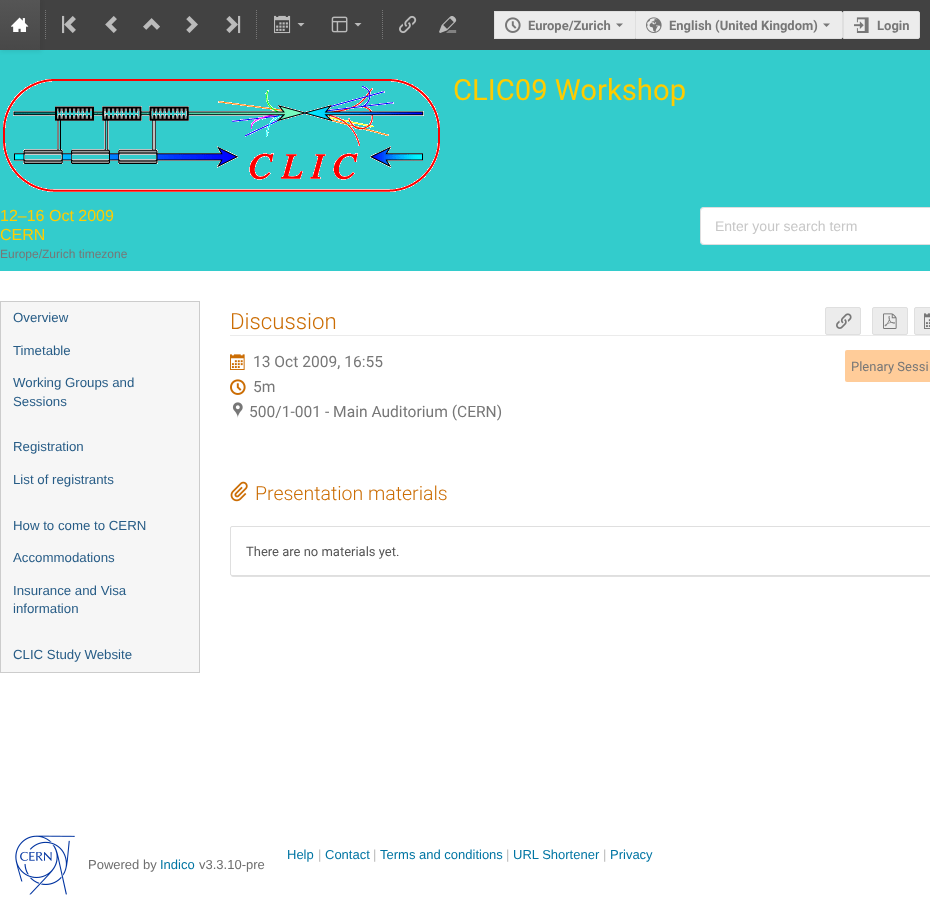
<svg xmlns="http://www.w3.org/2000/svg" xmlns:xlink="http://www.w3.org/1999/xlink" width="930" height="910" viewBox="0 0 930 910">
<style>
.cls-1{font:bold 13px Roboto;fill:#777777}
.cls-2{font:29.25px Roboto;fill:#ffcc00}
.cls-3{font:16px Liberation Sans;fill:#ffcc00}
.cls-4{font:12px Liberation Sans;fill:#777777}
.cls-5{font:14px 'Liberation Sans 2';fill:#c7c7c7}
.cls-6{font:13.25px 'Liberation Sans 2';fill:#275c86}
.cls-7{font:300 22.25px Roboto;fill:#cb6d04}
.cls-8{font:15.6px Roboto;fill:#777777}
.cls-9{font:13px Roboto;fill:#777777}
.cls-10{font:300 19.5px Roboto;fill:#cb6d04}
.cls-11{font:13px Roboto;fill:#555555}
.cls-12{font:13px Liberation Sans;fill:#0075a3}
.cls-13{font:13px Liberation Sans;fill:#bbbbbb}
.cls-14{font:13px Liberation Sans;fill:#6e6e6e}
</style>
<defs>
<linearGradient id="g1" gradientUnits="userSpaceOnUse" x1="20" y1="0" x2="20" y2="50"><stop offset="0" stop-color="#555555"/><stop offset="1" stop-color="#484848"/></linearGradient>
</defs>
<rect width="100%" height="100%" fill="#ffffff"/>
<rect fill="#424242" x="40" y="0" width="890" height="50"/>
<rect fill="#33cccc" x="0" y="50" width="930" height="221"/>
<rect fill="#141414" fill-opacity="0.1" filter="blur(2px)" x="1" y="1" width="40" height="50"/>
<rect fill="url(#g1)" x="0" y="0" width="40" height="50"/>
<image xlink:href="image0.png" x="11" y="17" width="18" height="15"/>
<path fill="none" stroke="#777777" stroke-dasharray="1 1" d="M45.5 10V40"/>
<image xlink:href="image1.png" x="62" y="15" width="14" height="19"/>
<image xlink:href="image2.png" x="105" y="16" width="12" height="17"/>
<image xlink:href="image3.png" x="143" y="18" width="17" height="12"/>
<image xlink:href="image4.png" x="186" y="16" width="12" height="17"/>
<image xlink:href="image5.png" x="226" y="15" width="15" height="19"/>
<path fill="none" stroke="#777777" stroke-dasharray="1 1" d="M256.5 10V40"/>
<image xlink:href="image6.png" x="274" y="15" width="17" height="19"/>
<path fill="#bbbbbb" d="M297.5 23L301 26.5L304.5 23Z"/>
<image xlink:href="image7.png" x="331" y="16" width="17" height="17"/>
<path fill="#bbbbbb" d="M354.5 23L358 26.5L361.5 23Z"/>
<path fill="none" stroke="#777777" stroke-dasharray="1 1" d="M382.5 10V40"/>
<image xlink:href="image8.png" x="399" y="15" width="18" height="19"/>
<image xlink:href="image9.png" x="439" y="16" width="18" height="17"/>
<rect fill="#ececec" x="495" y="12" width="140" height="26"/>
<rect fill="#dfdfdf" x="494" y="11" width="141" height="1"/>
<rect fill="#dfdfdf" x="494" y="38" width="141" height="1"/>
<rect fill="#dfdfdf" x="494" y="11" width="1" height="28"/>
<image xlink:href="image10.png" x="505" y="17" width="16" height="16"/>
<path fill="#777777" d="M616 23.5L619.5 27L623 23.5Z"/>
<path fill="#ececec" stroke="#dfdfdf" d="M635.5 11.5H841C842 11.5 842.5 12 842.5 13V37C842.5 38 842 38.5 841 38.5H635.5Z"/>
<image xlink:href="image11.png" x="646" y="17" width="16" height="16"/>
<path fill="#777777" d="M823 23.5L826.5 27L830 23.5Z"/>
<path fill="#ececec" stroke="#dfdfdf" d="M843.5 11.5H918C919 11.5 919.5 12 919.5 13V37C919.5 38 919 38.5 918 38.5H843.5Z"/>
<image xlink:href="image12.png" x="854" y="17" width="15" height="16"/>
<image xlink:href="image13.png" x="3" y="79" width="437" height="113"/>
<rect fill="#ffffff" x="700" y="207" width="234" height="38" rx="4"/>
<rect fill="none" stroke="#222426" stroke-opacity="0.15" x="700.5" y="207.5" width="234" height="37" rx="3.5"/>
<rect fill="#f6f6f6" stroke="#cccccc" x="0.5" y="301.5" width="199" height="371"/>
<rect fill="#ebebeb" x="230" y="335" width="700" height="1"/>
<rect fill="#ececec" stroke="#dfdfdf" x="825.5" y="307.5" width="35" height="27" rx="1.5"/>
<image xlink:href="image14.png" x="836" y="313" width="16" height="16"/>
<rect fill="#ececec" stroke="#dfdfdf" x="872.5" y="307.5" width="35" height="27" rx="1.5"/>
<image xlink:href="image15.png" x="883" y="313" width="14" height="16"/>
<rect fill="#ececec" stroke="#dfdfdf" x="914.5" y="307.5" width="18" height="27" rx="1.5"/>
<image xlink:href="image16.png" x="924" y="313" width="6" height="16"/>
<image xlink:href="image17.png" x="230" y="354" width="15" height="16"/>
<image xlink:href="image18.png" x="230" y="379" width="16" height="16"/>
<image xlink:href="image19.png" x="232" y="402" width="11" height="16"/>
<rect fill="#ffcc99" x="845" y="350" width="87" height="32" rx="2"/>
<image xlink:href="image20.png" x="230" y="481" width="18" height="21"/>
<rect fill="#e1e1e1" filter="blur(0.5px)" x="231" y="527" width="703" height="50" rx="2"/>
<rect fill="#ffffff" stroke="#dfdfdf" x="230.5" y="526.5" width="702" height="49" rx="1.5"/>
<image xlink:href="image21.png" x="15" y="835" width="60" height="60"/>
<text class="cls-1" x="528" y="30">Europe/Zurich</text>
<text class="cls-1" x="669" y="30">English (United Kingdom)</text>
<text class="cls-1" x="877" y="30">Login</text>
<text class="cls-2" x="453" y="100">CLIC09 Workshop</text>
<text class="cls-3"><tspan x="0" y="221">12–16 Oct 2009</tspan><tspan x="0" y="240">CERN</tspan></text>
<text class="cls-4" x="0" y="258">Europe/Zurich timezone</text>
<text class="cls-5" x="715" y="231">Enter your search term</text>
<text class="cls-6" x="13" y="322">Overview</text>
<text class="cls-6" x="13" y="355">Timetable</text>
<text class="cls-6"><tspan x="13" y="387">Working Groups and</tspan><tspan x="13" y="406">Sessions</tspan></text>
<text class="cls-6" x="13" y="451">Registration</text>
<text class="cls-6" x="13" y="484">List of registrants</text>
<text class="cls-6" x="13" y="530">How to come to CERN</text>
<text class="cls-6" x="13" y="562">Accommodations</text>
<text class="cls-6"><tspan x="13" y="595">Insurance and Visa</tspan><tspan x="13" y="613">information</tspan></text>
<text class="cls-6" x="13" y="659">CLIC Study Website</text>
<text class="cls-7" x="230" y="329">Discussion</text>
<text class="cls-8"><tspan x="253" y="367">13 Oct 2009, 16:55</tspan><tspan x="253" y="392">5m</tspan></text>
<text class="cls-8" x="249" y="417">500/1-001 - Main Auditorium (CERN)</text>
<text class="cls-9" x="851" y="371">Plenary Sessi</text>
<text class="cls-10" x="255" y="500">Presentation materials</text>
<text class="cls-11" x="246" y="556">There are no materials yet.</text>
<text class="cls-12" x="287" y="859">Help</text>
<text class="cls-13" x="318" y="859">|</text>
<text class="cls-12" x="325" y="859">Contact</text>
<text class="cls-13" x="373" y="859">|</text>
<text class="cls-12" x="380" y="859">Terms and conditions</text>
<text class="cls-13" x="506" y="859">|</text>
<text class="cls-12" x="513" y="859">URL Shortener</text>
<text class="cls-13" x="603" y="859">|</text>
<text class="cls-12" x="610" y="859">Privacy</text>
<text class="cls-14" x="88" y="869">Powered by</text>
<text class="cls-12" x="160" y="869">Indico</text>
<text class="cls-14" x="199" y="869">v3.3.10-pre</text>
</svg>
